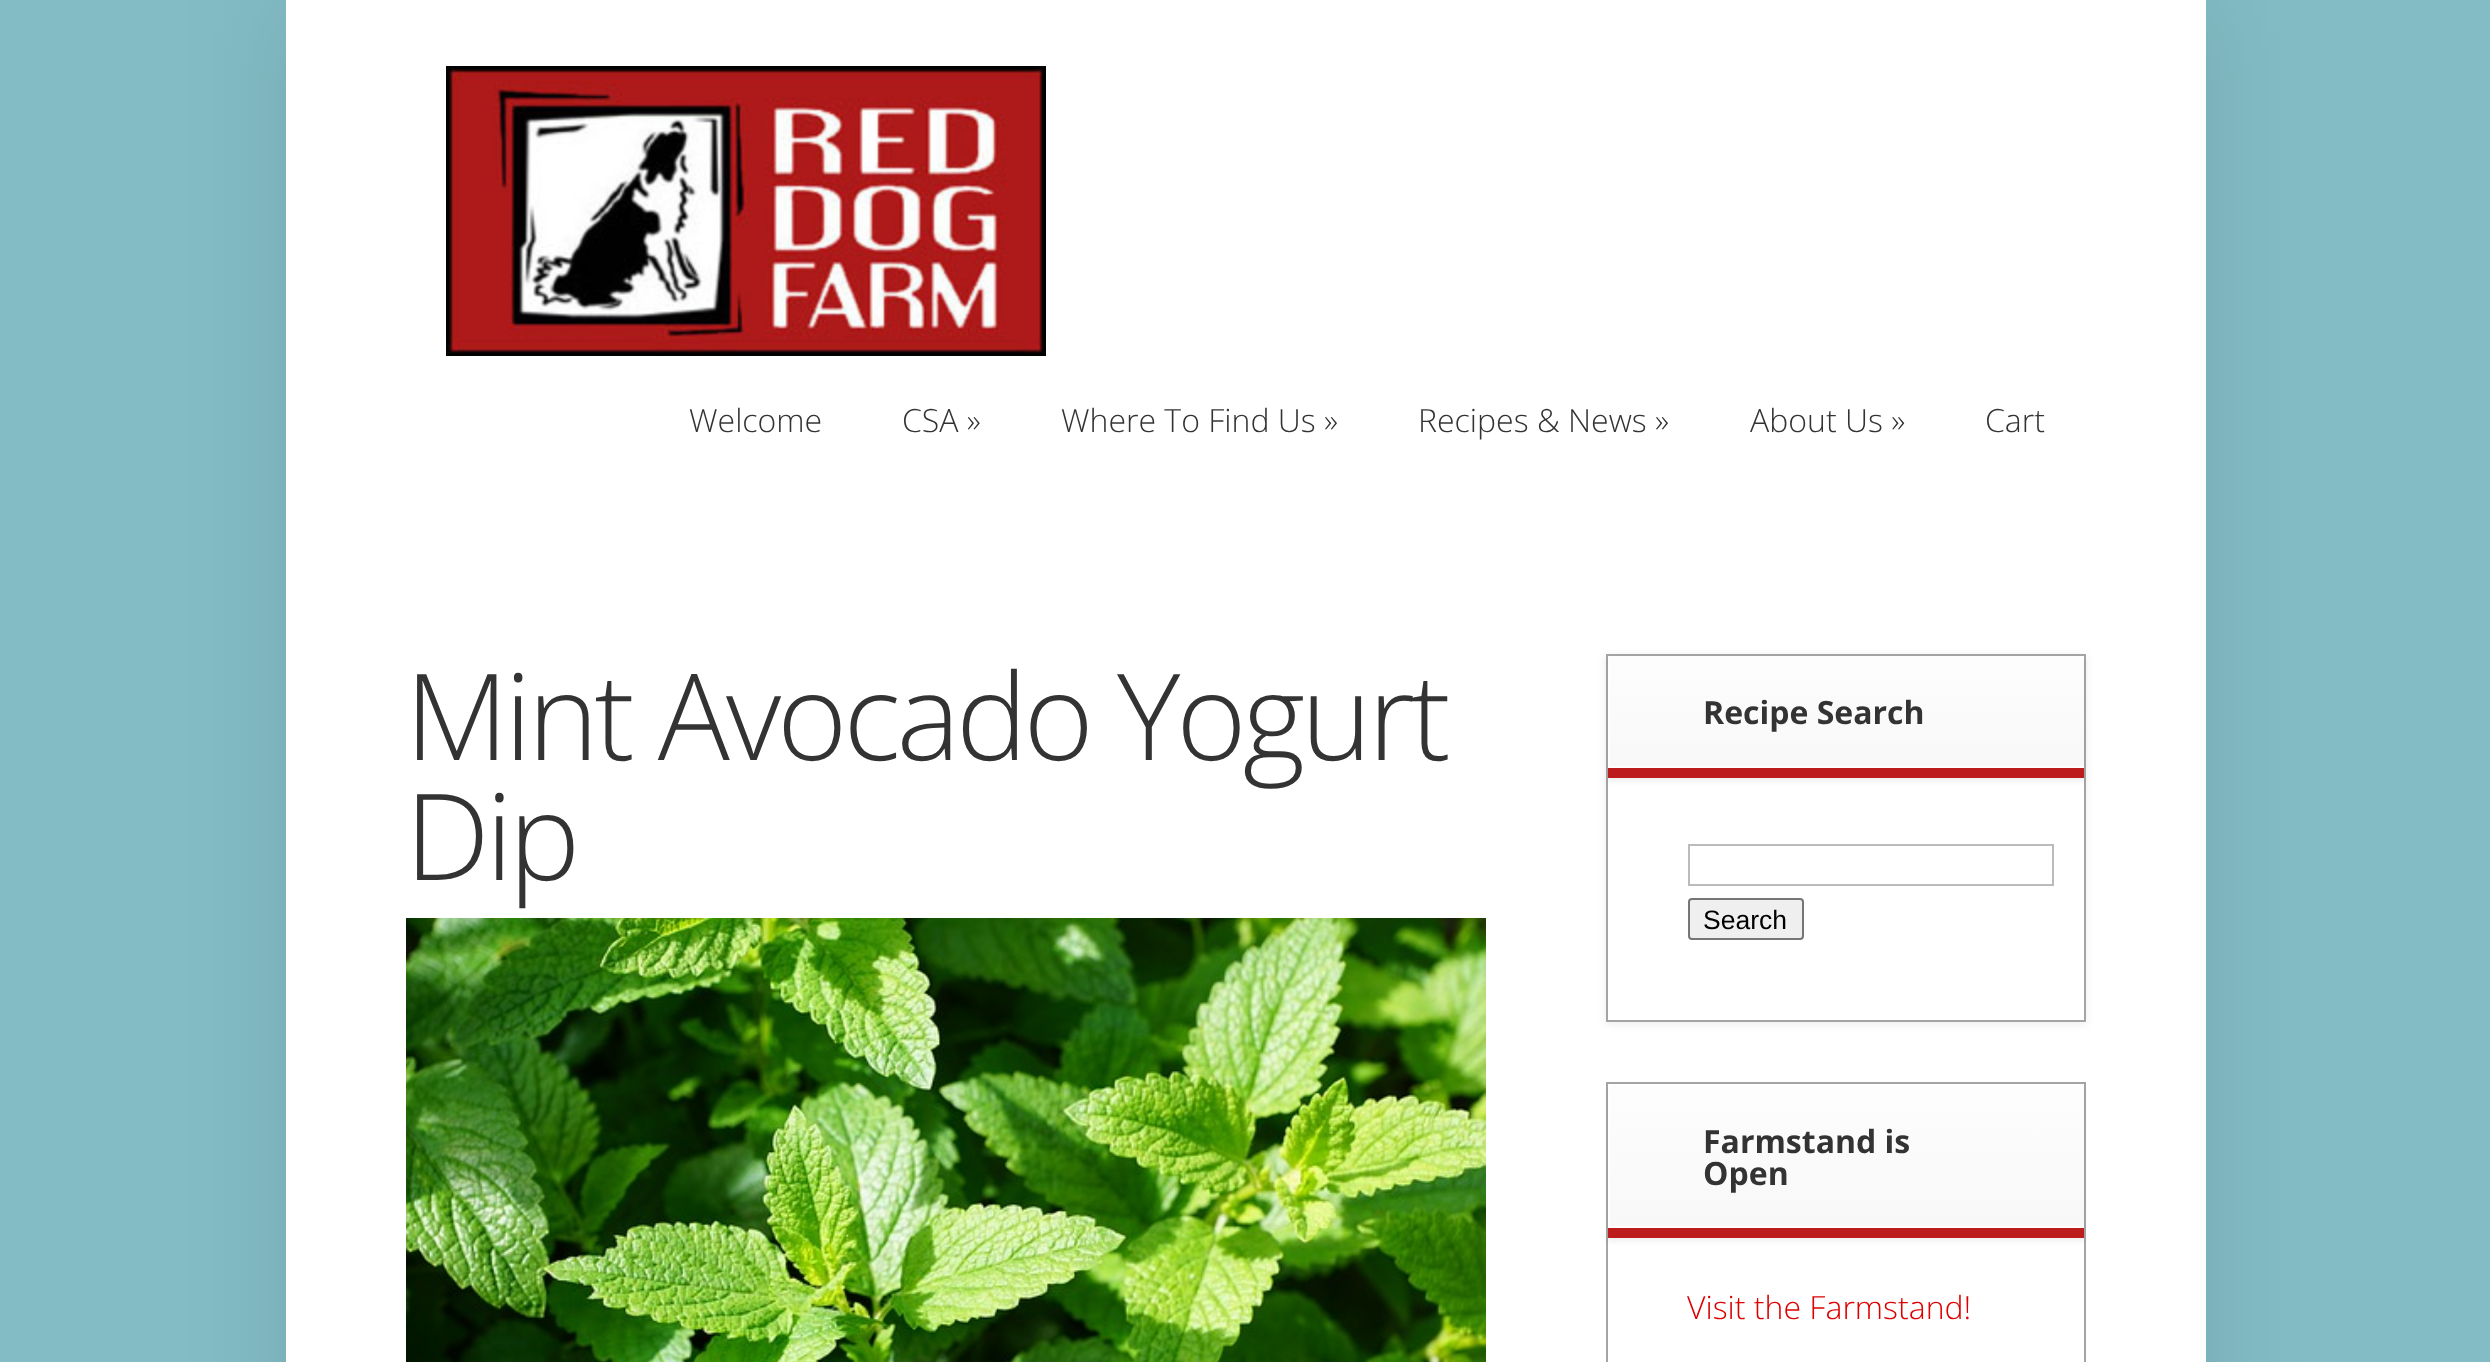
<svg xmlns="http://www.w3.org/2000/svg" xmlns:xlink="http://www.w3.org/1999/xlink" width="2490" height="1362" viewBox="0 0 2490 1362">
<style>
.cls-1{font:300 32px Open Sans;fill:#333333}
.cls-2{font:300 120px Open Sans;letter-spacing:-4px;fill:#333333}
.cls-3{font:bold 32px Open Sans;fill:#333333}
.cls-4{font:26.5px Liberation Sans;fill:#000000}
.cls-5{font:300 32px Open Sans;fill:#dd0000}
</style>
<defs>
<clipPath id="clip1"><path d="M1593 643H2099V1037H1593ZM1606 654H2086V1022H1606Z" clip-rule="evenodd"/></clipPath>
<linearGradient id="g1" gradientUnits="userSpaceOnUse" x1="1846" y1="656" x2="1846" y2="768"><stop offset="0" stop-color="#fdfdfd"/><stop offset="1" stop-color="#f8f8f8"/></linearGradient>
<clipPath id="clip2"><rect x="1608" y="656" width="476" height="112"/></clipPath>
<linearGradient id="g2" gradientUnits="userSpaceOnUse" x1="1846" y1="1084" x2="1846" y2="1228"><stop offset="0" stop-color="#fdfdfd"/><stop offset="1" stop-color="#f8f8f8"/></linearGradient>
<clipPath id="clip3"><rect x="1608" y="1084" width="476" height="144"/></clipPath>
</defs>
<rect width="100%" height="100%" fill="#83bcc5"/>
<rect fill="#000000" fill-opacity="0.1" filter="blur(50px)" x="286" y="0" width="1920" height="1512"/>
<rect fill="#ffffff" x="286" y="0" width="1920" height="1362"/>
<image xlink:href="image0.png" x="446" y="66" width="600" height="290"/>
<image xlink:href="image1.png" x="406" y="918" width="1080" height="444"/>
<g clip-path="url(#clip1)">
<rect fill="#000000" fill-opacity="0.07" filter="blur(4px)" x="1606" y="656" width="480" height="368"/>
</g>
<rect fill="none" stroke="#a5a4a4" stroke-width="2" x="1607" y="655" width="478" height="366"/>
<rect fill="#000000" fill-opacity="0.05" filter="blur(2px)" x="1608" y="660" width="476" height="122"/>
<rect fill="url(#g1)" x="1610" y="659" width="474" height="107"/>
<g clip-path="url(#clip2)">
<path fill="#ffffff" fill-rule="evenodd" d="M1410 458H2282V966H1410ZM1610 654H2086V766H1610Z"/>
</g>
<rect fill="#bc1c1c" x="1608" y="768" width="476" height="10"/>
<rect fill="none" stroke="#bbbbbb" stroke-width="2" x="1689" y="845" width="364" height="40"/>
<rect fill="#efefef" stroke="#767676" stroke-width="2" x="1689" y="899" width="114" height="40" rx="3"/>
<rect fill="none" stroke="#a5a4a4" stroke-width="2" x="1607" y="1083" width="478" height="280"/>
<rect fill="#000000" fill-opacity="0.05" filter="blur(2px)" x="1608" y="1088" width="476" height="154"/>
<rect fill="url(#g2)" x="1610" y="1087" width="474" height="139"/>
<g clip-path="url(#clip3)">
<path fill="#ffffff" fill-rule="evenodd" d="M1410 886H2282V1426H1410ZM1610 1082H2086V1226H1610Z"/>
</g>
<rect fill="#bc1c1c" x="1608" y="1228" width="476" height="10"/>
<text class="cls-1" x="689" y="432">Welcome</text>
<text class="cls-1" x="902" y="432">CSA »</text>
<text class="cls-1" x="1061" y="432">Where To Find Us »</text>
<text class="cls-1" x="1418" y="432">Recipes &amp; News »</text>
<text class="cls-1" x="1750" y="432">About Us »</text>
<text class="cls-1" x="1985" y="432">Cart</text>
<text class="cls-2"><tspan x="405" y="760">Mint Avocado Yogurt</tspan><tspan x="405" y="880">Dip</tspan></text>
<text class="cls-3" x="1703" y="724">Recipe Search</text>
<text class="cls-4" x="1703" y="929">Search</text>
<text class="cls-3"><tspan x="1703" y="1153">Farmstand is</tspan><tspan x="1703" y="1185">Open</tspan></text>
<text class="cls-5" x="1687" y="1319">Visit the Farmstand!</text>
</svg>
